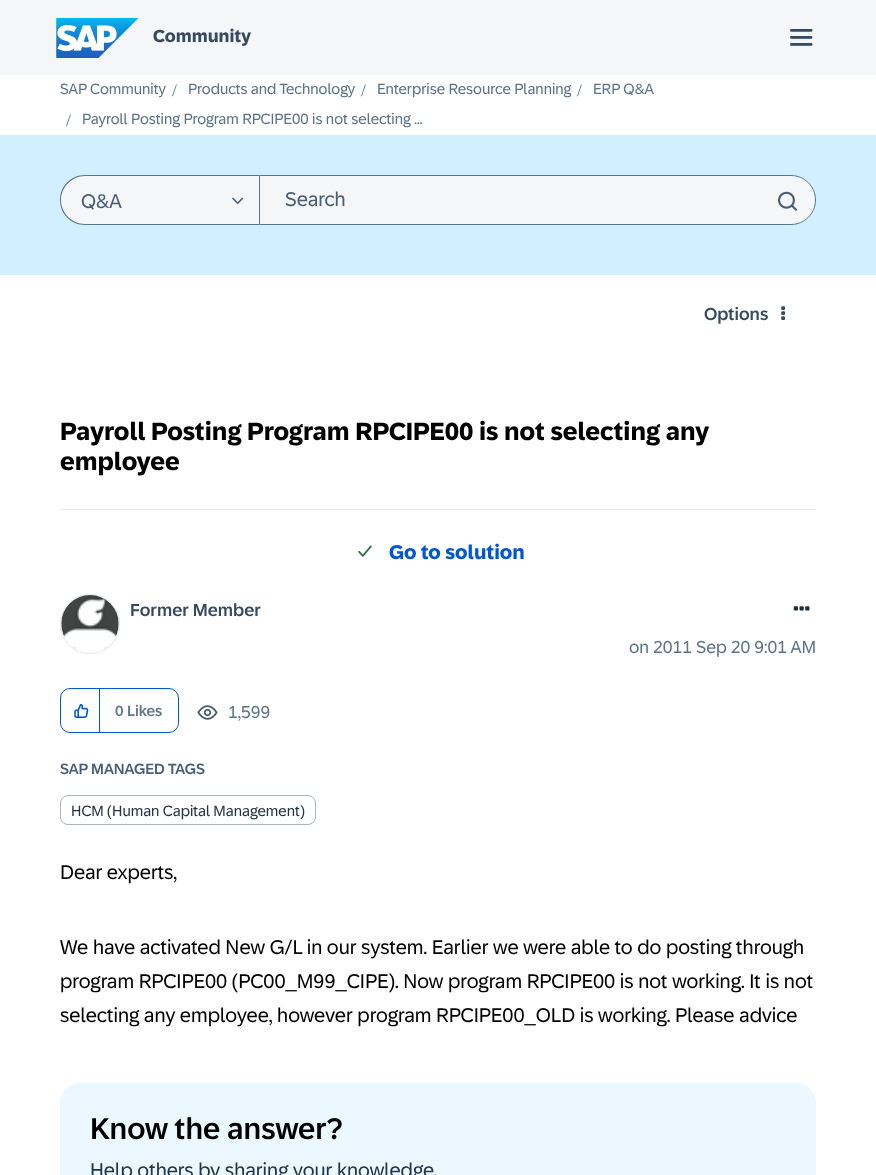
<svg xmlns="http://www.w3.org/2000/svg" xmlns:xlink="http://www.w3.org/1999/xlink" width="876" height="1175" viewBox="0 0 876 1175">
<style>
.cls-1{font:bold 17.5px '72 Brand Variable';fill:#354a5f}
.cls-2{font:15px '72 Brand Variable';fill:#5b738b}
.cls-3{font:17.5px Liberation Serif;fill:#5b738b}
.cls-4{font:20px '72 Brand Variable';fill:#475e75}
.cls-5{font:500 17.5px '72 Brand Variable';fill:#354a5f}
.cls-6{font:bold 25px '72 Brand Variable';fill:#000000}
.cls-7{font:bold 20px '72 Brand Variable';fill:#0057d2}
.cls-8{font:17.5px '72 Brand Variable';fill:#5b738b}
.cls-9{font:500 15px '72 Brand Variable';fill:#617990}
.cls-10{font:500 15px '72 Brand Variable';fill:#475e75}
.cls-11{font:15px '72 Brand Variable';fill:#223548}
.cls-12{font:20px '72 Brand Variable';fill:#000000}
.cls-13{font:500 30px '72 Brand Variable';fill:#000000}
.cls-14{font:20px '72 Brand Variable';fill:#223548}
</style>
<defs>
<clipPath id="clip1"><path d="M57 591H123V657H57ZM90 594C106.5 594 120 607.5 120 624C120 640.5 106.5 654 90 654C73.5 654 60 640.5 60 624C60 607.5 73.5 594 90 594Z" clip-rule="evenodd"/></clipPath>
</defs>
<rect width="100%" height="100%" fill="#ffffff"/>
<rect fill="#f5f6f7" x="0" y="0" width="876" height="75"/>
<image xlink:href="image0.png" x="56" y="18" width="83" height="40"/>
<image xlink:href="image1.png" x="790" y="29" width="23" height="17"/>
<rect fill="#d1efff" x="0" y="135" width="876" height="140"/>
<path fill="#f5f6f7" d="M85 175H259V225H85C71 225 60 214 60 200C60 186 71 175 85 175Z"/>
<path fill="#5b738b" fill-rule="evenodd" d="M85 175H259V225H85C71 225 60 214 60 200C60 186 71 175 85 175ZM85 176H259V224H85C72 224 61 213 61 200C61 187 72 176 85 176Z"/>
<image xlink:href="image2.png" x="232" y="197" width="12" height="8"/>
<path fill="#f5f6f7" stroke="#5b738b" d="M259.5 175.5H791C804.5 175.5 815.5 186.5 815.5 200C815.5 213.5 804.5 224.5 791 224.5H259.5Z"/>
<image xlink:href="image3.png" x="778" y="191" width="19" height="20"/>
<image xlink:href="image4.png" x="781" y="306" width="4" height="14"/>
<rect fill="#eaecee" x="60" y="509" width="756" height="1"/>
<image xlink:href="image5.png" x="358" y="545" width="14" height="12"/>
<g clip-path="url(#clip1)">
<rect fill="#c4c4c4" filter="blur(0.5px)" x="60" y="594" width="60" height="60" rx="30"/>
</g>
<circle fill="none" stroke="#eaecee" cx="90" cy="624" r="29.5"/>
<image xlink:href="image6.png" x="61" y="595" width="58" height="54"/>
<image xlink:href="image7.png" x="793" y="606" width="17" height="5"/>
<rect fill="none" stroke="#0057d2" x="60.5" y="688.5" width="118" height="44" rx="9.5"/>
<rect fill="#0057d2" x="99" y="689" width="1" height="44"/>
<image xlink:href="image8.png" x="74" y="703" width="15" height="15"/>
<image xlink:href="image9.png" x="197" y="705" width="21" height="15"/>
<rect fill="none" stroke="#a9b4be" x="60.5" y="795.5" width="255" height="29" rx="7.5"/>
<rect fill="#ebf8ff" x="60" y="1083" width="756" height="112" rx="20"/>
<text class="cls-1" x="153" y="42">Community</text>
<text class="cls-2" x="60" y="94">SAP Community</text>
<text class="cls-3" x="172" y="96">/</text>
<text class="cls-2" x="188" y="94">Products and Technology</text>
<text class="cls-3" x="361" y="96">/</text>
<text class="cls-2" x="377" y="94">Enterprise Resource Planning</text>
<text class="cls-3" x="577" y="96">/</text>
<text class="cls-2" x="593" y="94">ERP Q&amp;A</text>
<text class="cls-3" x="66" y="126">/</text>
<text class="cls-2" x="82" y="124">Payroll Posting Program RPCIPE00 is not selecting ...</text>
<text class="cls-4" x="81" y="208">Q&amp;A</text>
<text class="cls-4" x="285" y="206">Search</text>
<text class="cls-5" x="704" y="320">Options</text>
<text class="cls-6"><tspan x="60" y="440">Payroll Posting Program RPCIPE00 is not selecting any</tspan><tspan x="60" y="470">employee</tspan></text>
<text class="cls-7" x="389" y="559">Go to solution</text>
<text class="cls-5" x="130" y="616">Former Member</text>
<text class="cls-8" x="629" y="653">on 2011 Sep 20 9:01 AM</text>
<text class="cls-9" x="115" y="716">0 Likes</text>
<text class="cls-8" x="228" y="718">1,599</text>
<text class="cls-10" x="60" y="774">SAP MANAGED TAGS</text>
<text class="cls-11" x="71" y="816">HCM (Human Capital Management)</text>
<text class="cls-12" x="60" y="879">Dear experts,</text>
<text class="cls-12"><tspan x="60" y="954">We have activated New G/L in our system. Earlier we were able to do posting through</tspan><tspan x="60" y="988">program RPCIPE00 (PC00_M99_CIPE). Now program RPCIPE00 is not working. It is not</tspan><tspan x="60" y="1022">selecting any employee, however program RPCIPE00_OLD is working. Please advice</tspan></text>
<text class="cls-13" x="90" y="1139">Know the answer?</text>
<text class="cls-14" x="90" y="1177">Help others by sharing your knowledge.</text>
</svg>
